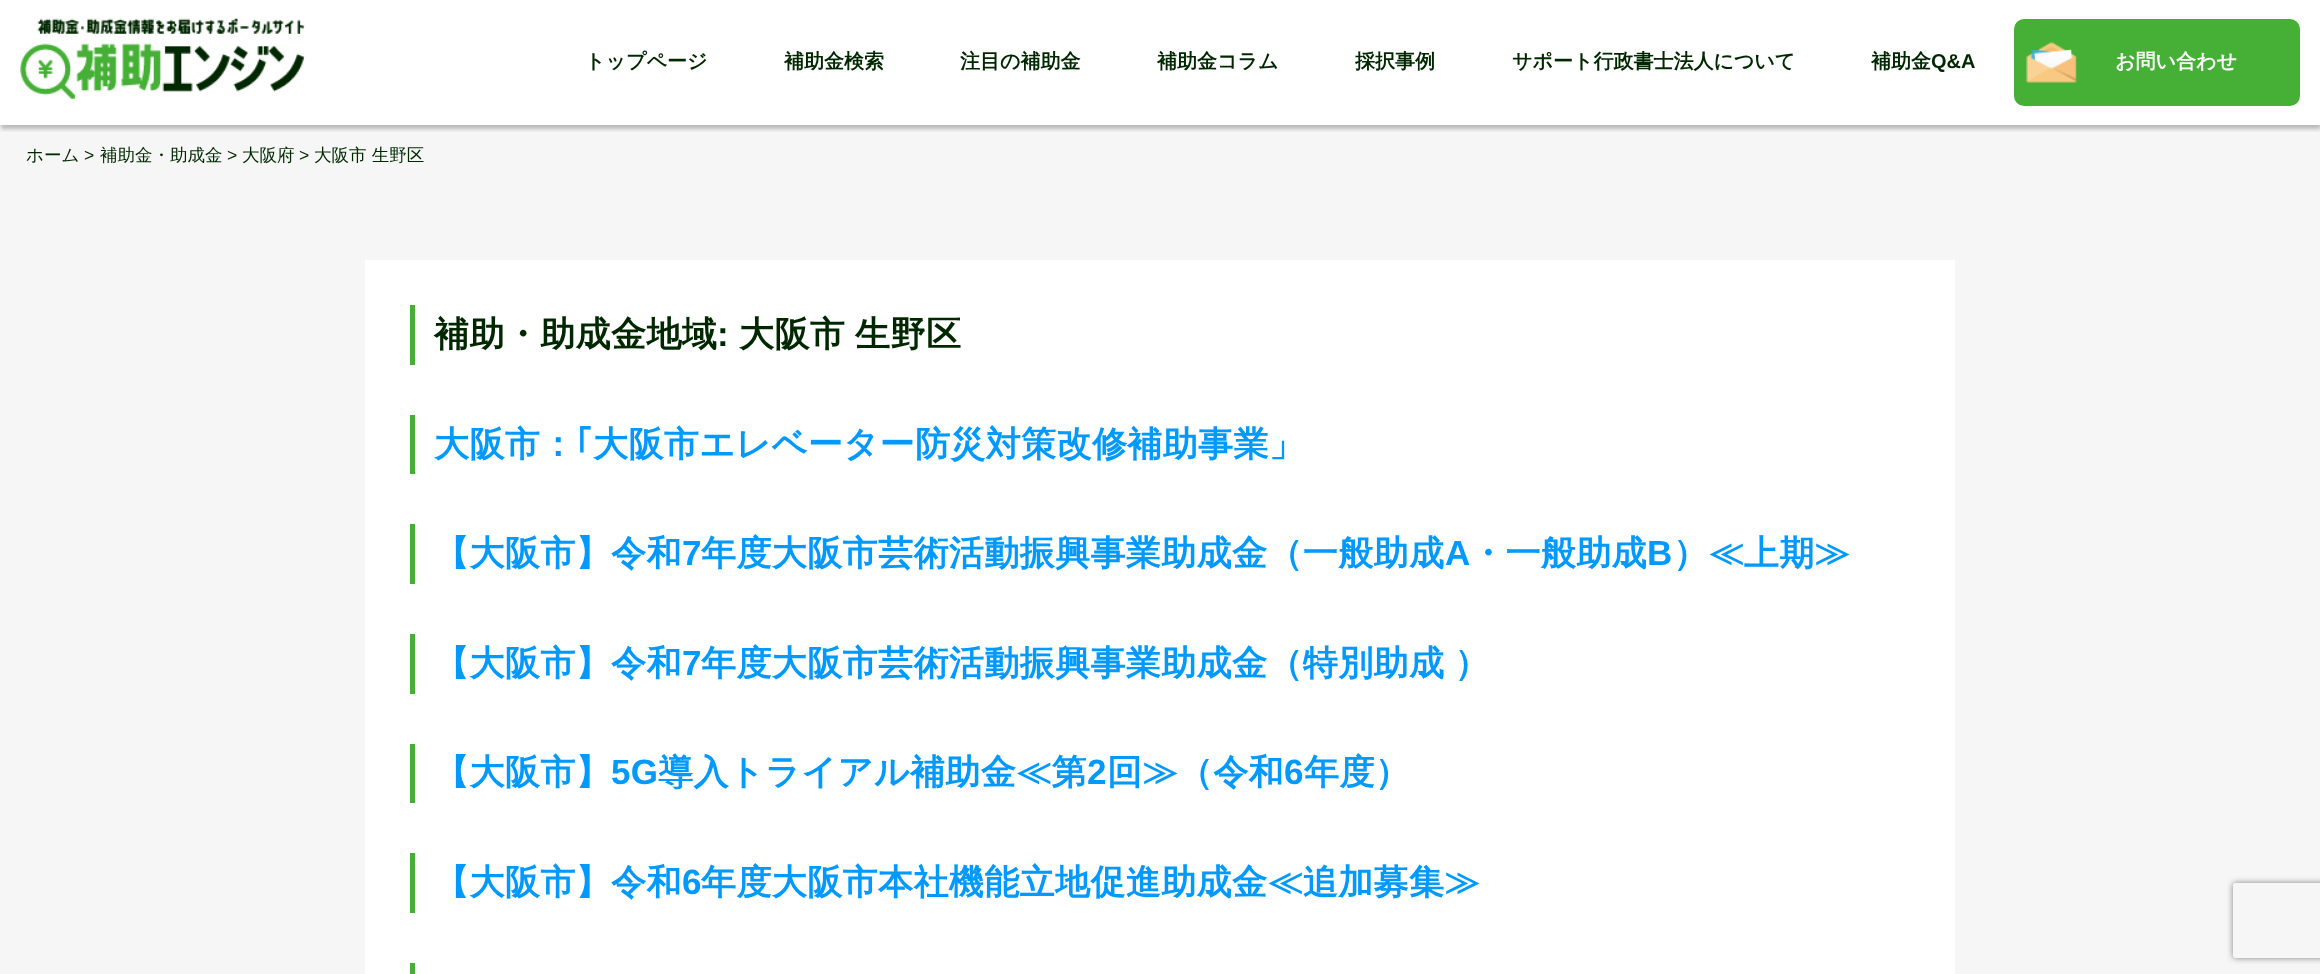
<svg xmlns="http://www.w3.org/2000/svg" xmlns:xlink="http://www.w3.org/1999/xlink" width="2320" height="974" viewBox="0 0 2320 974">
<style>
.cls-1{font:bold 20px WenQuanYi Zen Hei;fill:#002800}
.cls-2{font:bold 20px Liberation Sans;fill:#002800}
.cls-3{font:bold 20px WenQuanYi Zen Hei;fill:#ffffff}
.cls-4{font:500 17.5px WenQuanYi Zen Hei;fill:#002800}
.cls-5{font:17.5px Liberation Sans;fill:#002800}
.cls-6{font:bold 35px WenQuanYi Zen Hei;letter-spacing:0.4px;fill:#002800}
.cls-7{font:bold 35px Liberation Sans;letter-spacing:0.4px;fill:#002800}
.cls-8{font:bold 35px WenQuanYi Zen Hei;letter-spacing:0.4px;fill:#0099ff}
.cls-9{font:bold 35px IPAPGothic;letter-spacing:0.4px;fill:#0099ff}
.cls-10{font:bold 35px Liberation Sans;letter-spacing:0.4px;fill:#0099ff}
</style>
<defs>
<clipPath id="clip1"><rect x="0" y="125" width="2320" height="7"/></clipPath>
<clipPath id="clip2"><path d="M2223 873H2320V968H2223ZM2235.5 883H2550.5C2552 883 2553 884 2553 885.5V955.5C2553 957 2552 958 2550.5 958H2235.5C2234 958 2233 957 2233 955.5V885.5C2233 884 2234 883 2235.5 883Z" clip-rule="evenodd"/></clipPath>
</defs>
<rect width="100%" height="100%" fill="#ffffff"/>
<rect fill="#f5f6f5" x="0" y="125" width="2320" height="849"/>
<g clip-path="url(#clip1)">
<rect fill="#000000" fill-opacity="0.25" filter="blur(2px)" x="1" y="4" width="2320" height="125"/>
</g>
<image xlink:href="image0.png" x="20" y="18" width="285" height="81"/>
<rect fill="#45b035" x="2014" y="19" width="286" height="87" rx="10"/>
<image xlink:href="image1.png" x="2026" y="42" width="51" height="41"/>
<rect fill="#ffffff" x="365" y="260" width="1590" height="714"/>
<rect fill="#45b035" x="410" y="305" width="5" height="60"/>
<rect fill="#45b035" x="410" y="415" width="5" height="59"/>
<rect fill="#45b035" x="410" y="524" width="5" height="60"/>
<rect fill="#45b035" x="410" y="634" width="5" height="60"/>
<rect fill="#45b035" x="410" y="744" width="5" height="59"/>
<rect fill="#45b035" x="410" y="853" width="5" height="60"/>
<rect fill="#45b035" x="410" y="963" width="5" height="11"/>
<g clip-path="url(#clip2)">
<rect fill="#808080" filter="blur(3px)" x="2233" y="883" width="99" height="75" rx="2.5"/>
</g>
<text class="cls-1" x="585" y="68">トップページ</text>
<text class="cls-1" x="784" y="68">補助金検索</text>
<text class="cls-1" x="960" y="68">注目の補助金</text>
<text class="cls-1" x="1157" y="68">補助金コラム</text>
<text class="cls-1" x="1355" y="68">採択事例</text>
<text class="cls-1" x="1512" y="68">サポート行政書士法人について</text>
<text class="cls-1" x="1871" y="68">補助金</text>
<text class="cls-2" x="1931" y="68">Q&amp;A</text>
<text class="cls-3" x="2115" y="68">お問い合わせ</text>
<text class="cls-4" x="26" y="161">ホーム</text>
<text class="cls-5" x="84" y="161">&gt;</text>
<text class="cls-4" x="100" y="161">補助金・助成金</text>
<text class="cls-5" x="227" y="161">&gt;</text>
<text class="cls-4" x="242" y="161">大阪府</text>
<text class="cls-5" x="299" y="161">&gt;</text>
<text class="cls-4" x="314" y="161">大阪市 生野区</text>
<text class="cls-6" x="434" y="346">補助・助成金地域</text>
<text class="cls-7" x="717" y="346">:</text>
<text class="cls-6" x="739" y="346" word-spacing="-1">大阪市 生野区</text>
<text class="cls-8" x="434" y="456">大阪市：</text>
<text class="cls-9" x="575" y="456">｢</text>
<text class="cls-8" x="593" y="456">大阪市エレベーター防災対策改修補助事業」</text>
<text class="cls-8" x="434" y="565">【大阪市】令和</text>
<text class="cls-10" x="682" y="565">7</text>
<text class="cls-8" x="701" y="565">年度大阪市芸術活動振興事業助成金（一般助成</text>
<text class="cls-10" x="1445" y="565">A</text>
<text class="cls-8" x="1470" y="565">・一般助成</text>
<text class="cls-10" x="1647" y="565">B</text>
<text class="cls-8" x="1673" y="565">）≪上期≫</text>
<text class="cls-8" x="434" y="675">【大阪市】令和</text>
<text class="cls-10" x="682" y="675">7</text>
<text class="cls-8" x="701" y="675" word-spacing="-1">年度大阪市芸術活動振興事業助成金（特別助成 ）</text>
<text class="cls-8" x="434" y="784">【大阪市】</text>
<text class="cls-10" x="611" y="784">5G</text>
<text class="cls-8" x="658" y="784">導入トライアル補助金≪第</text>
<text class="cls-10" x="1087" y="784">2</text>
<text class="cls-8" x="1107" y="784">回≫（令和</text>
<text class="cls-10" x="1284" y="784">6</text>
<text class="cls-8" x="1304" y="784">年度）</text>
<text class="cls-8" x="434" y="894">【大阪市】令和</text>
<text class="cls-10" x="682" y="894">6</text>
<text class="cls-8" x="701" y="894">年度大阪市本社機能立地促進助成金≪追加募集≫</text>
</svg>
